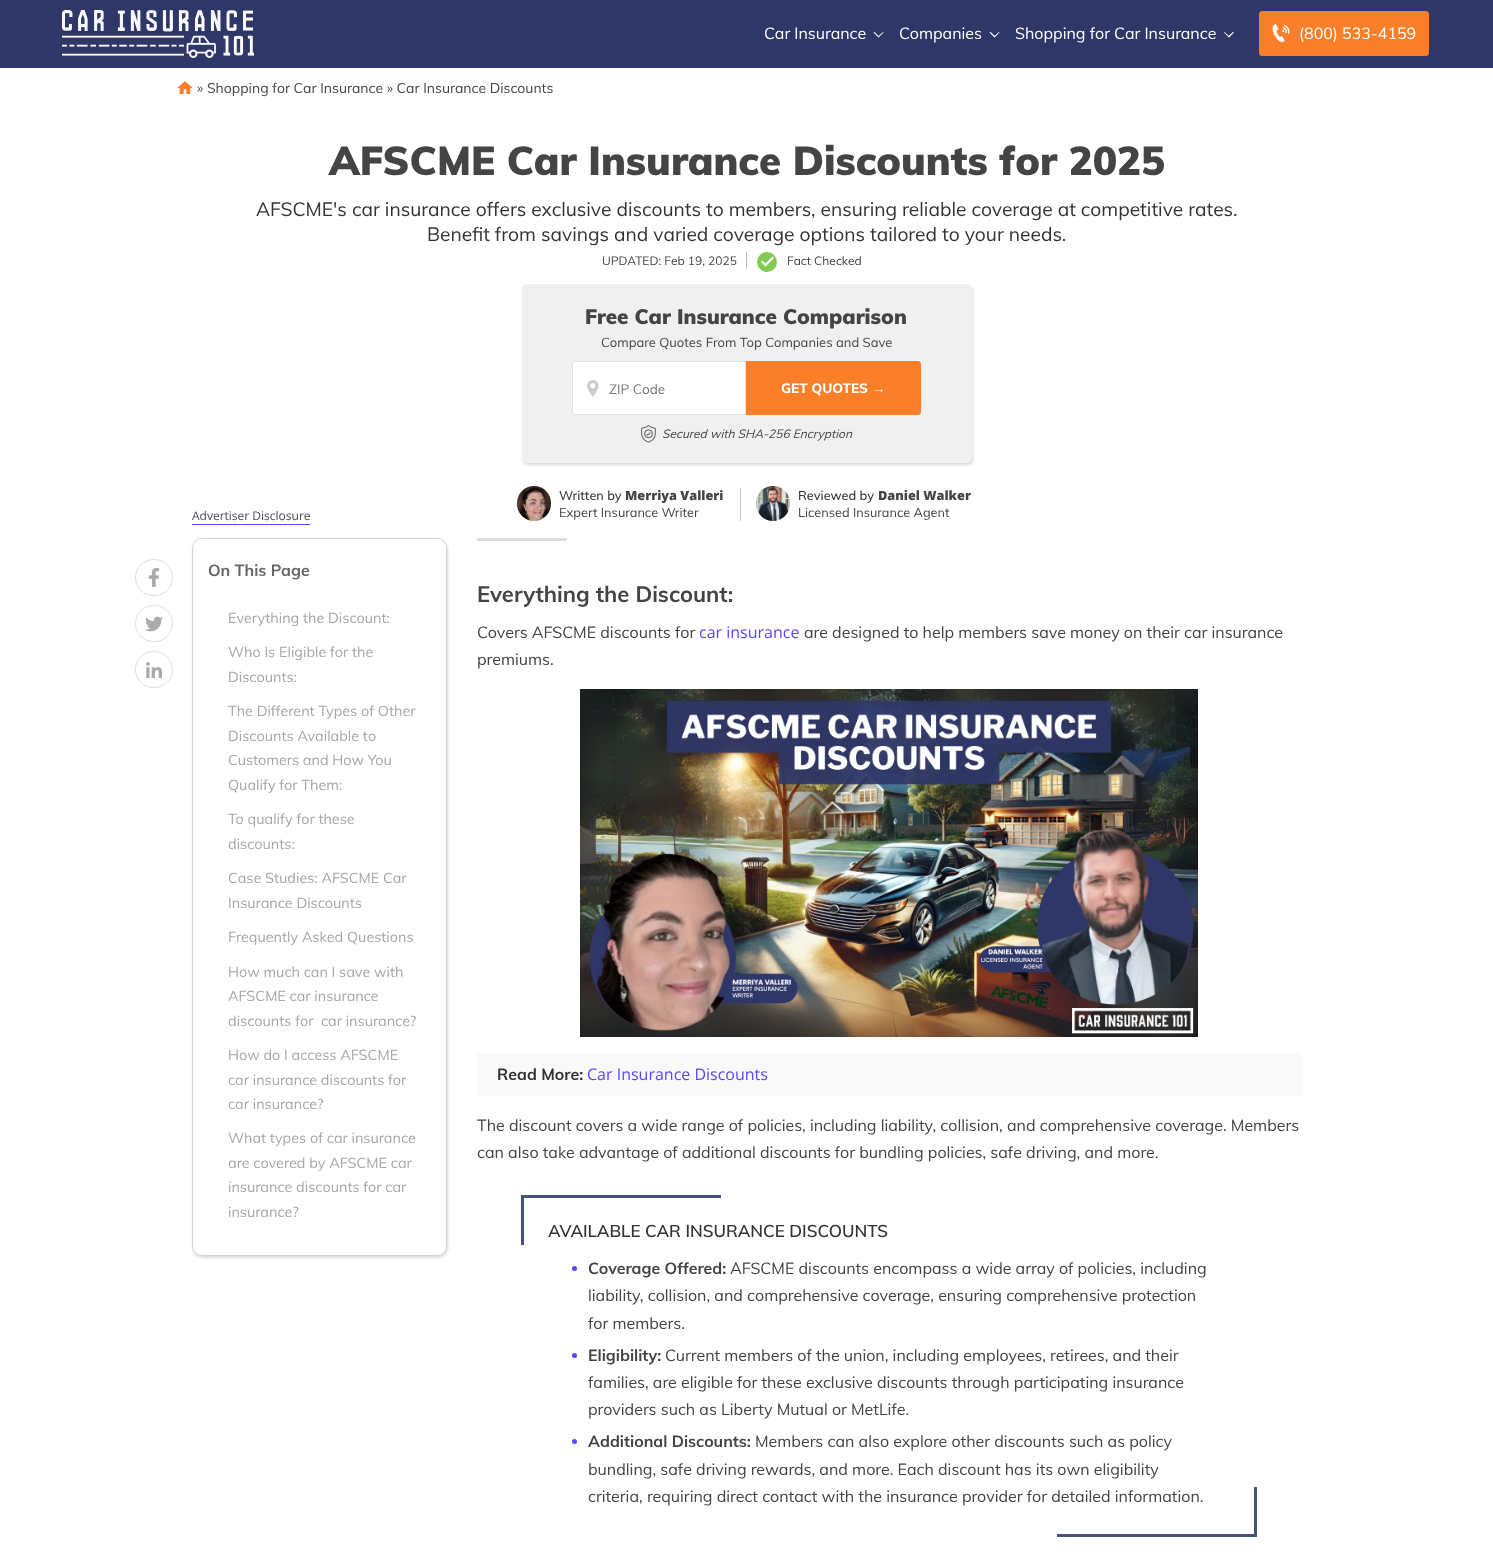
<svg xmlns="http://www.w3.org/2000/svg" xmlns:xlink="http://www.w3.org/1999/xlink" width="1493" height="1564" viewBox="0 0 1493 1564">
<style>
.cls-1{font:16px Muli;fill:#ffffff}
.cls-2{font:14px Muli;fill:#444444}
.cls-3{font:900 40px Muli;fill:#444444}
.cls-4{font:19.2px Muli;fill:#333333}
.cls-5{font:12px Muli;fill:#444444}
.cls-6{font:900 20.75px Muli;fill:#444444}
.cls-7{font:13px Muli;fill:#444444}
.cls-8{font:13.5px Muli;fill:#757575}
.cls-9{font:800 13.5px Muli;fill:#ffffff}
.cls-10{font:bold 13.5px Liberation Sans;fill:#ffffff}
.cls-11{font:italic 12px Muli;fill:#444444}
.cls-12{font:500 12.75px Muli;fill:#333333}
.cls-13{font:800 12.75px Open Sans;fill:#444444}
.cls-14{font:12.75px Muli;fill:#444444}
.cls-15{font:12px Open Sans;fill:#4e4756}
.cls-16{font:bold 16px Muli;fill:#666666}
.cls-17{font:14.4px Muli;fill:#a8a6a6}
.cls-18{font:bold 22px Muli;fill:#444444}
.cls-19{font:16px Muli;fill:#444444}
.cls-20{font:16px Open Sans;fill:#5947ff}
.cls-21{font:bold 16px Muli;fill:#333333}
.cls-22{font:600 17px Muli;fill:#333333}
.cls-23{font:bold 16px Muli;fill:#444444}
</style>
<defs>
<clipPath id="clip1"><path d="M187 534H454V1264H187ZM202 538H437C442.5 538 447 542.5 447 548V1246C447 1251.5 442.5 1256 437 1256H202C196.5 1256 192 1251.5 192 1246V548C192 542.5 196.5 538 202 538Z" clip-rule="evenodd"/></clipPath>
</defs>
<rect width="100%" height="100%" fill="#ffffff"/>
<rect fill="#2f3769" x="0" y="0" width="1493" height="68"/>
<image xlink:href="image0.png" x="62" y="10" width="192" height="48"/>
<path fill="#ffffff" d="M883 32L883.5 32.5L878.5 37.5L878 36.5Z"/>
<path fill="#ffffff" d="M874.5 32L879 36.5L878.5 37.5L873.5 32.5Z"/>
<path fill="#ffffff" d="M999 32L999.5 32.5L994.5 37.5L994 36.5Z"/>
<path fill="#ffffff" d="M990.5 32L995.5 36.5L994.5 37.5L989.5 32.5Z"/>
<path fill="#ffffff" d="M1233 32L1234 32.5L1229 37.5L1228 36.5Z"/>
<path fill="#ffffff" d="M1224.5 32L1229.5 36.5L1229 37.5L1224 32.5Z"/>
<rect fill="#fa7f28" stroke="#fa7f28" x="1259.5" y="11.5" width="169" height="44" rx="2.5"/>
<image xlink:href="image1.png" x="1272" y="24" width="18" height="18"/>
<image xlink:href="image2.png" x="177" y="81" width="16" height="13"/>
<rect fill="#bababa" x="746" y="252" width="1" height="17"/>
<circle fill="#81ca54" cx="767" cy="262" r="10"/>
<path fill="#ffffff" d="M772.5 256.5L774 258L765.5 266.5L764 265Z"/>
<path fill="#ffffff" d="M762.5 260.5L766.5 265L765.5 266.5L761 262Z"/>
<rect fill="#d9d9d9" filter="blur(1.5px)" x="523" y="286" width="450" height="179" rx="5"/>
<rect fill="#f0f0f0" x="522" y="284" width="450" height="179" rx="5"/>
<path fill="#ffffff" stroke="#e1e0e0" d="M575 361.5H745.5V414.5H575C573.5 414.5 572.5 413.5 572.5 412V364C572.5 362.5 573.5 361.5 575 361.5Z"/>
<image xlink:href="image3.png" x="587" y="380" width="12" height="17"/>
<path fill="#fa7f28" d="M746 361H918C919.5 361 921 362.5 921 364V412C921 413.5 919.5 415 918 415H746Z"/>
<image xlink:href="image4.png" x="641" y="425" width="15" height="18"/>
<image xlink:href="image5.png" x="517" y="486" width="34" height="35"/>
<rect fill="#cccccc" x="740" y="488" width="1" height="33"/>
<image xlink:href="image6.png" x="756" y="486" width="34" height="35"/>
<rect fill="#5947ff" x="192" y="524" width="118" height="1"/>
<rect fill="none" stroke="#dedede" x="135.5" y="559.5" width="37" height="36" rx="18"/>
<image xlink:href="image7.png" x="148" y="568" width="12" height="19"/>
<rect fill="none" stroke="#dedede" x="135.5" y="605.5" width="37" height="36" rx="18"/>
<image xlink:href="image8.png" x="145" y="616" width="18" height="16"/>
<rect fill="none" stroke="#dedede" x="135.5" y="651.5" width="37" height="36" rx="18"/>
<image xlink:href="image9.png" x="146" y="662" width="16" height="16"/>
<g clip-path="url(#clip1)">
<rect fill="#d9d9d9" filter="blur(1.5px)" x="193" y="540" width="255" height="718" rx="10"/>
</g>
<rect fill="none" stroke="#d3d3d3" x="192.5" y="538.5" width="254" height="717" rx="9.5"/>
<rect fill="#dedede" x="477" y="538" width="90" height="3"/>
<image xlink:href="image10.png" x="580" y="689" width="618" height="348"/>
<rect fill="#f9f9f9" x="477" y="1053" width="825" height="43" rx="3"/>
<rect fill="#47527c" x="521" y="1195" width="200" height="50"/>
<rect fill="#47527c" x="1057" y="1487" width="200" height="50"/>
<rect fill="#ffffff" x="524" y="1198" width="730" height="336"/>
<circle fill="#5947ff" cx="574.5" cy="1268.5" r="2.5"/>
<circle fill="#5947ff" cx="574.5" cy="1355.5" r="2.5"/>
<circle fill="#5947ff" cx="574.5" cy="1441.5" r="2.5"/>
<text class="cls-1" x="764" y="39">Car Insurance</text>
<text class="cls-1" x="899" y="39">Companies</text>
<text class="cls-1" x="1015" y="39">Shopping for Car Insurance</text>
<text class="cls-1" x="1299" y="39">(800) 533-4159</text>
<text class="cls-2" x="197" y="93">» Shopping for Car Insurance » Car Insurance Discounts</text>
<text class="cls-3" x="329" y="175">AFSCME Car Insurance Discounts for 2025</text>
<text class="cls-4" x="256" y="216">AFSCME's car insurance offers exclusive discounts to members, ensuring reliable coverage at competitive rates.</text>
<text class="cls-4" x="427" y="241">Benefit from savings and varied coverage options tailored to your needs.</text>
<text class="cls-5" x="602" y="265">UPDATED: Feb 19, 2025</text>
<text class="cls-5" x="787" y="265">Fact Checked</text>
<text class="cls-6" x="585" y="324">Free Car Insurance Comparison</text>
<text class="cls-7" x="601" y="347">Compare Quotes From Top Companies and Save</text>
<text class="cls-8" x="609" y="394">ZIP Code</text>
<text class="cls-9" x="781" y="393">GET QUOTES</text>
<text class="cls-10" x="872" y="393">→</text>
<text class="cls-11" x="662" y="438">Secured with SHA-256 Encryption</text>
<text class="cls-12" x="559" y="500">Written by</text>
<text class="cls-13" x="625" y="500">Merriya Valleri</text>
<text class="cls-14" x="559" y="517">Expert Insurance Writer</text>
<text class="cls-12" x="798" y="500">Reviewed by</text>
<text class="cls-13" x="878" y="500">Daniel Walker</text>
<text class="cls-14" x="798" y="517">Licensed Insurance Agent</text>
<text class="cls-15" x="192" y="520">Advertiser Disclosure</text>
<text class="cls-16" x="208" y="576">On This Page</text>
<text class="cls-17" x="228" y="623">Everything the Discount:</text>
<text class="cls-17"><tspan x="228" y="657">Who Is Eligible for the</tspan><tspan x="228" y="682">Discounts:</tspan></text>
<text class="cls-17"><tspan x="228" y="716">The Different Types of Other</tspan><tspan x="228" y="741">Discounts Available to</tspan><tspan x="228" y="765">Customers and How You</tspan><tspan x="228" y="790">Qualify for Them:</tspan></text>
<text class="cls-17"><tspan x="228" y="824">To qualify for these</tspan><tspan x="228" y="849">discounts:</tspan></text>
<text class="cls-17"><tspan x="228" y="883">Case Studies: AFSCME Car</tspan><tspan x="228" y="908">Insurance Discounts</tspan></text>
<text class="cls-17" x="228" y="942">Frequently Asked Questions</text>
<text class="cls-17" xml:space="preserve"><tspan x="228" y="977">How much can I save with</tspan><tspan x="228" y="1001">AFSCME car insurance</tspan><tspan x="228" y="1026">discounts for  car insurance?</tspan></text>
<text class="cls-17"><tspan x="228" y="1060">How do I access AFSCME</tspan><tspan x="228" y="1085">car insurance discounts for</tspan><tspan x="228" y="1109">car insurance?</tspan></text>
<text class="cls-17"><tspan x="228" y="1143">What types of car insurance</tspan><tspan x="228" y="1168">are covered by AFSCME car</tspan><tspan x="228" y="1192">insurance discounts for car</tspan><tspan x="228" y="1217">insurance?</tspan></text>
<text class="cls-18" x="477" y="602">Everything the Discount:</text>
<text class="cls-19" x="477" y="638">Covers AFSCME discounts for</text>
<text class="cls-20" x="699" y="638">car insurance</text>
<text class="cls-19" x="804" y="638">are designed to help members save money on their car insurance</text>
<text class="cls-19" x="477" y="665">premiums.</text>
<text class="cls-21" x="497" y="1080">Read More:</text>
<text class="cls-20" x="587" y="1080">Car Insurance Discounts</text>
<text class="cls-19"><tspan x="477" y="1131">The discount covers a wide range of policies, including liability, collision, and comprehensive coverage. Members</tspan><tspan x="477" y="1158">can also take advantage of additional discounts for bundling policies, safe driving, and more.</tspan></text>
<text class="cls-22" x="548" y="1237">AVAILABLE CAR INSURANCE DISCOUNTS</text>
<text class="cls-23" x="588" y="1274">Coverage Offered:</text>
<text class="cls-19" x="730" y="1274">AFSCME discounts encompass a wide array of policies, including</text>
<text class="cls-19"><tspan x="588" y="1301">liability, collision, and comprehensive coverage, ensuring comprehensive protection</tspan><tspan x="588" y="1329">for members.</tspan></text>
<text class="cls-23" x="588" y="1361">Eligibility:</text>
<text class="cls-19" x="665" y="1361">Current members of the union, including employees, retirees, and their</text>
<text class="cls-19"><tspan x="588" y="1388">families, are eligible for these exclusive discounts through participating insurance</tspan><tspan x="588" y="1415">providers such as Liberty Mutual or MetLife.</tspan></text>
<text class="cls-23" x="588" y="1447">Additional Discounts:</text>
<text class="cls-19" x="755" y="1447">Members can also explore other discounts such as policy</text>
<text class="cls-19"><tspan x="588" y="1475">bundling, safe driving rewards, and more. Each discount has its own eligibility</tspan><tspan x="588" y="1502">criteria, requiring direct contact with the insurance provider for detailed information.</tspan></text>
</svg>
